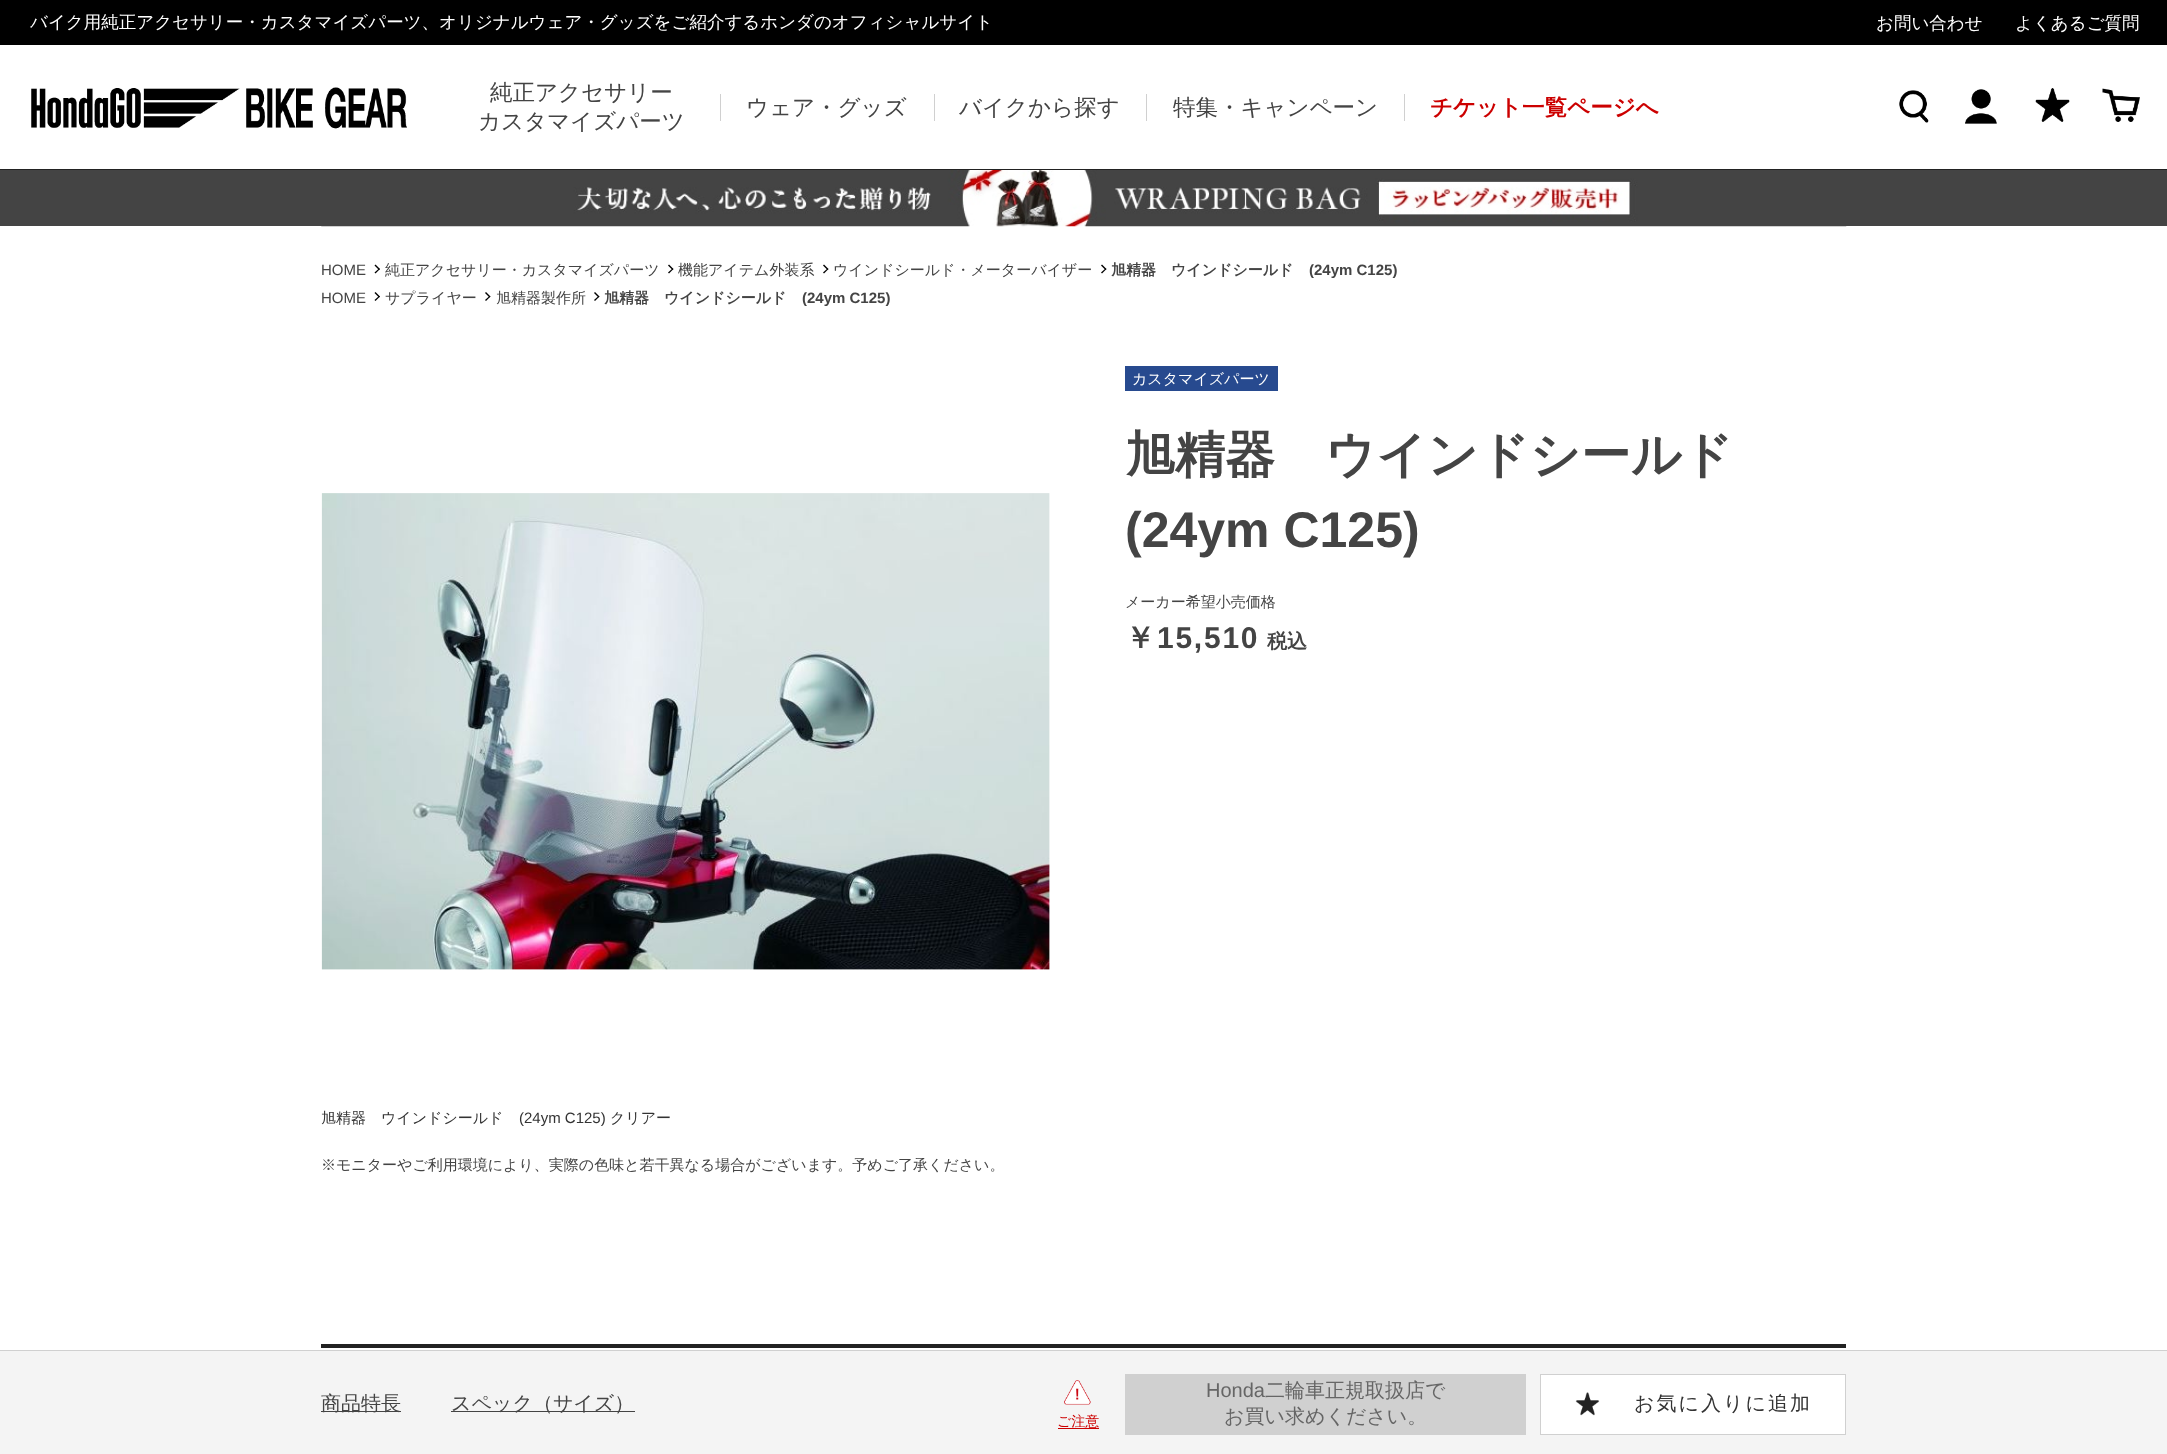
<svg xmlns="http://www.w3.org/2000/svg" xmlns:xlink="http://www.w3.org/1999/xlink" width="2167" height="1454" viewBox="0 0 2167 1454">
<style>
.cls-1{font:500 17.5px WenQuanYi Zen Hei;fill:#ffffff}
.cls-2{font:500 22.5px WenQuanYi Zen Hei;fill:#444444}
.cls-3{font:bold 22.5px WenQuanYi Zen Hei;fill:#cc0000}
.cls-4{font:15px Liberation Sans;fill:#444444}
.cls-5{font:500 15px WenQuanYi Zen Hei;fill:#444444}
.cls-6{font:bold 15px WenQuanYi Zen Hei;fill:#444444}
.cls-7{font:bold 15px Liberation Sans;fill:#444444}
.cls-8{font:500 15px WenQuanYi Zen Hei;fill:#ffffff}
.cls-9{font:bold 50px WenQuanYi Zen Hei;fill:#444444}
.cls-10{font:bold 50px Liberation Sans;fill:#444444}
.cls-11{font:bold 30px WenQuanYi Zen Hei;letter-spacing:1.75px;fill:#444444}
.cls-12{font:bold 30px Liberation Sans;letter-spacing:1.75px;fill:#444444}
.cls-13{font:bold 20px WenQuanYi Zen Hei;fill:#444444}
.cls-14{font:500 20px WenQuanYi Zen Hei;fill:#444444}
.cls-15{font:20px Liberation Sans;fill:#666666}
.cls-16{font:500 20px WenQuanYi Zen Hei;fill:#666666}
.cls-17{font:500 20px WenQuanYi Zen Hei;letter-spacing:2px;fill:#333333}
.cls-18{font:500 14px WenQuanYi Zen Hei;fill:#cc0000}
.cls-19{font:500 15px WenQuanYi Zen Hei;fill:#333333}
.cls-20{font:15px Liberation Sans;fill:#333333}
</style>
<rect width="100%" height="100%" fill="#ffffff"/>
<rect fill="#000000" x="0" y="0" width="2167" height="45"/>
<rect fill="#222222" x="0" y="169" width="2167" height="1"/>
<image xlink:href="image0.png" x="31" y="87" width="376" height="42"/>
<rect fill="#d0d0d0" x="720" y="94" width="1" height="27"/>
<rect fill="#d0d0d0" x="934" y="94" width="1" height="27"/>
<rect fill="#d0d0d0" x="1146" y="94" width="1" height="27"/>
<rect fill="#d0d0d0" x="1404" y="94" width="1" height="27"/>
<image xlink:href="image1.png" x="1899" y="90" width="30" height="33"/>
<image xlink:href="image2.png" x="1965" y="89" width="32" height="35"/>
<image xlink:href="image3.png" x="2035" y="88" width="35" height="34"/>
<image xlink:href="image4.png" x="2102" y="88" width="38" height="34"/>
<rect fill="#444444" x="0" y="170" width="2167" height="56"/>
<image xlink:href="image5.png" x="321" y="170" width="1526" height="57"/>
<path fill="#000000" d="M374.5 265.5L375.5 264.5L380 269L379 270Z"/>
<path fill="#000000" d="M374.5 272.5L379 268.5L380 269L375.5 273.5Z"/>
<path fill="#000000" d="M668 265.5L669 264.5L673.5 269L672.5 270Z"/>
<path fill="#000000" d="M668 272.5L672.5 268.5L673.5 269L669 273.5Z"/>
<path fill="#000000" d="M823 265.5L824 264.5L828.5 269L827.5 270Z"/>
<path fill="#000000" d="M823 272.5L827.5 268.5L828.5 269L824 273.5Z"/>
<path fill="#000000" d="M1101 265.5L1102 264.5L1106.5 269L1105.5 270Z"/>
<path fill="#000000" d="M1101 272.5L1105.5 268.5L1106.5 269L1102 273.5Z"/>
<path fill="#000000" d="M374.5 293L375.5 292L380 296.5L379 297.5Z"/>
<path fill="#000000" d="M374.5 300L379 296L380 296.5L375.5 301Z"/>
<path fill="#000000" d="M485 293L486 292L490.5 296.5L489.5 297.5Z"/>
<path fill="#000000" d="M485 300L489.5 296L490.5 296.5L486 301Z"/>
<path fill="#000000" d="M594 293L595 292L599.5 296.5L598.5 297.5Z"/>
<path fill="#000000" d="M594 300L598.5 296L599.5 296.5L595 301Z"/>
<rect fill="#274a8f" x="1125" y="366" width="153" height="25"/>
<rect fill="#f4f4f4" x="0" y="1351" width="2167" height="103"/>
<rect fill="#d0d0d0" x="0" y="1350" width="2167" height="1"/>
<rect fill="#444444" x="321" y="1411" width="80" height="1"/>
<rect fill="#444444" x="451" y="1411" width="184" height="1"/>
<rect fill="#d0d0d0" x="1125" y="1374" width="401" height="61"/>
<rect fill="#ffffff" stroke="#d0d0d0" x="1540.5" y="1374.5" width="305" height="60"/>
<image xlink:href="image6.png" x="1575" y="1392" width="25" height="24"/>
<image xlink:href="image7.png" x="1064" y="1380" width="27" height="25"/>
<rect fill="#cc0000" x="1058" y="1428" width="41" height="1"/>
<image xlink:href="image8.png" x="321" y="493" width="729" height="477"/>
<rect fill="#222222" x="321" y="1344" width="1525" height="4"/>
<text class="cls-1" x="30" y="28">バイク用純正アクセサリー・カスタマイズパーツ、オリジナルウェア・グッズをご紹介するホンダのオフィシャルサイト</text>
<text class="cls-1" x="1876" y="29">お問い合わせ</text>
<text class="cls-1" x="2015" y="29">よくあるご質問</text>
<text class="cls-2" x="490" y="100">純正アクセサリー</text>
<text class="cls-2" x="478" y="129">カスタマイズパーツ</text>
<text class="cls-2" x="746" y="115">ウェア・グッズ</text>
<text class="cls-2" x="959" y="115">バイクから探す</text>
<text class="cls-2" x="1173" y="115">特集・キャンペーン</text>
<text class="cls-3" x="1430" y="115">チケット一覧ページへ</text>
<text class="cls-4" x="321" y="275">HOME</text>
<text class="cls-5" x="385" y="275">純正アクセサリー・カスタマイズパーツ</text>
<text class="cls-5" x="678" y="275">機能アイテム外装系</text>
<text class="cls-5" x="833" y="275">ウインドシールド・メーターバイザー</text>
<text class="cls-6" x="1111" y="275">旭精器　ウインドシールド</text>
<text class="cls-7" x="1309" y="275">(24ym C125)</text>
<text class="cls-4" x="321" y="303">HOME</text>
<text class="cls-5" x="385" y="303">サプライヤー</text>
<text class="cls-5" x="496" y="303">旭精器製作所</text>
<text class="cls-6" x="604" y="303">旭精器　ウインドシールド</text>
<text class="cls-7" x="802" y="303">(24ym C125)</text>
<text class="cls-8" x="1132" y="384">カスタマイズパーツ</text>
<text class="cls-9" x="1125" y="472">旭精器　ウインドシールド</text>
<text class="cls-10" x="1125" y="547">(24ym C125)</text>
<text class="cls-5" x="1125" y="607">メーカー希望小売価格</text>
<text class="cls-11" x="1125" y="648">￥</text>
<text class="cls-12" x="1157" y="648">15,510</text>
<text class="cls-13" x="1267" y="648">税込</text>
<text class="cls-14" x="321" y="1410">商品特長</text>
<text class="cls-14" x="451" y="1410">スペック（サイズ）</text>
<text class="cls-15" x="1206" y="1397">Honda</text>
<text class="cls-16" x="1265" y="1397">二輪車正規取扱店で</text>
<text class="cls-16" x="1224" y="1423">お買い求めください。</text>
<text class="cls-17" x="1634" y="1410">お気に入りに追加</text>
<text class="cls-18" x="1057" y="1426">ご注意</text>
<text class="cls-19" x="321" y="1123">旭精器　ウインドシールド</text>
<text class="cls-20" x="519" y="1123">(24ym C125)</text>
<text class="cls-19" x="610" y="1123">クリアー</text>
<text class="cls-5" x="321" y="1170">※モニターやご利用環境により、実際の色味と若干異なる場合がございます。予めご了承ください。</text>
</svg>
